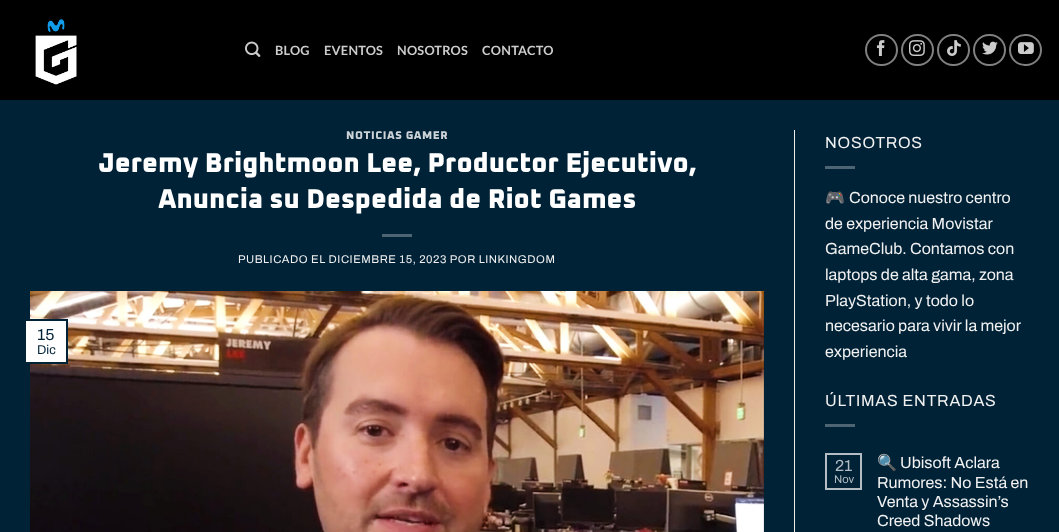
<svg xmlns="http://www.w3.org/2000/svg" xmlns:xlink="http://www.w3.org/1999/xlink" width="1059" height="532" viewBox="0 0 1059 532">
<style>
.cls-1{font:bold 12.75px Lato;letter-spacing:0.25px;fill:#cccccc}
.cls-2{font:800 11.2px Oxanium;letter-spacing:0.55px;fill:#ccd3d7}
.cls-3{font:800 27.2px Oxanium;fill:#ffffff}
.cls-4{font:600 11.2px Archivo;letter-spacing:0.55px;fill:#f1f1f1}
.cls-5{font:600 16px Archivo;fill:#002237}
.cls-6{font:600 12.75px Archivo;fill:#002237}
.cls-7{font:600 16px Archivo;letter-spacing:0.75px;fill:#f1f1f1}
.cls-8{font:16px Noto Color Emoji;fill:#f1f1f1}
.cls-9{font:600 16px Archivo;fill:#f1f1f1}
.cls-10{font:600 16px Archivo;fill:#b3bdc3}
.cls-11{font:600 11.2px Archivo;fill:#b3bdc3}
</style>
<rect width="100%" height="100%" fill="#002237"/>
<rect fill="#000001" x="0" y="0" width="1059" height="100"/>
<image xlink:href="image0.png" x="35" y="19" width="42" height="66"/>
<image xlink:href="image1.png" x="245" y="41" width="16" height="16"/>
<rect fill="none" stroke="#808080" stroke-width="2" x="866" y="35" width="31" height="30" rx="15"/>
<image xlink:href="image2.png" x="876" y="40" width="9" height="16"/>
<rect fill="none" stroke="#808080" stroke-width="2" x="902" y="35" width="31" height="30" rx="15"/>
<image xlink:href="image3.png" x="909" y="40" width="16" height="16"/>
<rect fill="none" stroke="#808080" stroke-width="2" x="938" y="35" width="31" height="30" rx="15"/>
<image xlink:href="image4.png" x="947" y="40" width="14" height="16"/>
<rect fill="none" stroke="#808080" stroke-width="2" x="974" y="35" width="31" height="30" rx="15"/>
<image xlink:href="image5.png" x="982" y="41" width="16" height="14"/>
<rect fill="none" stroke="#808080" stroke-width="2" x="1010" y="35" width="31" height="30" rx="15"/>
<image xlink:href="image6.png" x="1018" y="42" width="16" height="12"/>
<rect fill="#4d6473" x="382" y="234" width="30" height="3"/>
<image xlink:href="image7.png" x="30" y="291" width="734" height="241"/>
<rect fill="#ffffff" stroke="#002237" stroke-width="2" x="25" y="320" width="42" height="43"/>
<rect fill="#ececec" x="794" y="130" width="1" height="402"/>
<rect fill="#4d6473" x="825" y="166" width="30" height="3"/>
<rect fill="#4d6473" x="825" y="424" width="30" height="3"/>
<rect fill="none" stroke="#b3bdc3" stroke-width="2" x="826" y="454" width="35" height="35"/>
<text class="cls-1" x="275" y="55">BLOG</text>
<text class="cls-1" x="324" y="55">EVENTOS</text>
<text class="cls-1" x="397" y="55">NOSOTROS</text>
<text class="cls-1" x="482" y="55">CONTACTO</text>
<text class="cls-2" x="346" y="139">NOTICIAS GAMER</text>
<text class="cls-3" x="98" y="172">Jeremy Brightmoon Lee, Productor Ejecutivo,</text>
<text class="cls-3" x="158" y="208">Anuncia su Despedida de Riot Games</text>
<text class="cls-4" x="238" y="263">PUBLICADO EL DICIEMBRE 15, 2023 POR LINKINGDOM</text>
<text class="cls-5" x="37" y="340">15</text>
<text class="cls-6" x="37" y="354">Dic</text>
<text class="cls-7" x="825" y="148">NOSOTROS</text>
<text class="cls-8" x="825" y="203">🎮</text>
<text class="cls-9" x="849" y="203">Conoce nuestro centro</text>
<text class="cls-9"><tspan x="825" y="229">de experiencia Movistar</tspan><tspan x="825" y="254">GameClub. Contamos con</tspan><tspan x="825" y="280">laptops de alta gama, zona</tspan><tspan x="825" y="306">PlayStation, y todo lo</tspan><tspan x="825" y="331">necesario para vivir la mejor</tspan><tspan x="825" y="357">experiencia</tspan></text>
<text class="cls-7" x="825" y="406">ÚLTIMAS ENTRADAS</text>
<text class="cls-10" x="835" y="471">21</text>
<text class="cls-11" x="834" y="483">Nov</text>
<text class="cls-8" x="877" y="468">🔍</text>
<text class="cls-9" x="900" y="468">Ubisoft Aclara</text>
<text class="cls-9"><tspan x="877" y="488">Rumores: No Está en</tspan><tspan x="877" y="507">Venta y Assassin’s</tspan><tspan x="877" y="526">Creed Shadows</tspan></text>
</svg>
